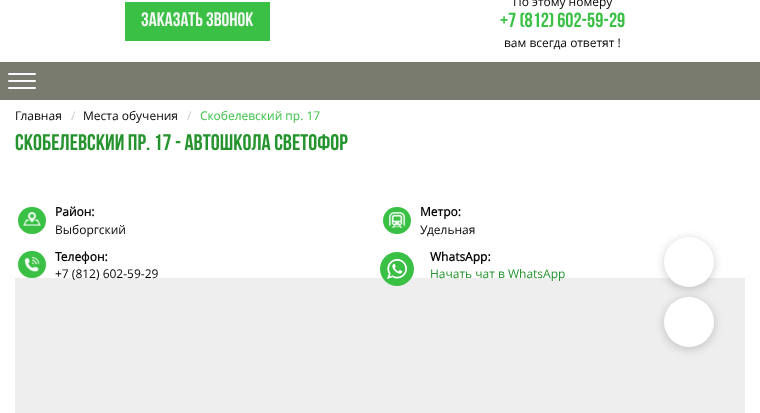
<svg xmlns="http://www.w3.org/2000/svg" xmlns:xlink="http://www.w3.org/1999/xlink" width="760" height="413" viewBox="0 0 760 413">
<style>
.cls-1{font:bold 19.5px Bebas Neue;fill:#f3f6f3}
.cls-2{font:12px Open Sans;fill:#060606}
.cls-3{font:bold 20.5px Bebas Neue;fill:#3ac045}
.cls-4{font:12px Open Sans;fill:#cccccc}
.cls-5{font:12px Open Sans;fill:#3ac045}
.cls-6{font:bold 22.5px Bebas Neue;fill:#25942e}
.cls-7{font:bold 12px Open Sans;fill:#060606}
.cls-8{font:12px Open Sans;fill:#25942e}
</style>
<defs>
<clipPath id="clip1"><rect x="15" y="134" width="730" height="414"/></clipPath>
</defs>
<rect width="100%" height="100%" fill="#ffffff"/>
<rect fill="#3ac045" x="125" y="2" width="145" height="39"/>
<rect fill="#7a7b6f" x="0" y="62" width="760" height="38"/>
<rect fill="#f8fafe" x="8" y="73" width="28" height="2" rx="1"/>
<rect fill="#f8fafe" x="8" y="80" width="28" height="2" rx="1"/>
<rect fill="#f8fafe" x="8" y="87" width="28" height="2" rx="1"/>
<rect fill="#3ac045" x="18" y="207" width="28" height="27" rx="13.5"/>
<image xlink:href="image0.png" x="23" y="212" width="18" height="14"/>
<rect fill="#3ac045" x="383" y="207" width="28" height="27" rx="13.5"/>
<image xlink:href="image1.png" x="389" y="212" width="16" height="16"/>
<rect fill="#3ac045" x="18" y="251" width="28" height="27" rx="13.5"/>
<image xlink:href="image2.png" x="24" y="257" width="16" height="15"/>
<rect fill="#eeeeee" x="15" y="278" width="730" height="135"/>
<circle fill="#3ac045" cx="397" cy="269" r="17"/>
<image xlink:href="image3.png" x="387" y="259" width="20" height="20"/>
<rect fill="#000000" fill-opacity="0.2" filter="blur(5px)" x="664" y="239" width="50" height="50" rx="25"/>
<circle fill="#ffffff" cx="689" cy="262" r="25"/>
<rect fill="#000000" fill-opacity="0.2" filter="blur(5px)" x="664" y="299" width="50" height="50" rx="25"/>
<circle fill="#ffffff" cx="689" cy="322" r="25"/>
<text class="cls-1" x="141" y="26">Заказать звонок</text>
<text class="cls-2" x="513" y="6">По этому номеру</text>
<text class="cls-3" x="500" y="27">+7 (812) 602-59-29</text>
<text class="cls-2" x="504" y="47">вам всегда ответят !</text>
<text class="cls-2" x="15" y="120">Главная</text>
<text class="cls-4" x="71" y="120">/</text>
<text class="cls-2" x="83" y="120">Места обучения</text>
<text class="cls-4" x="187" y="120">/</text>
<text class="cls-5" x="200" y="120">Скобелевский пр. 17</text>
<g clip-path="url(#clip1)">
<text class="cls-6" x="15" y="150">СКОБЕЛЕВСКИЙ ПР. 17 - АВТОШКОЛА СВЕТОФОР</text>
</g>
<text class="cls-7" x="55" y="216">Район:</text>
<text class="cls-2" x="55" y="234">Выборгский</text>
<text class="cls-7" x="420" y="216">Метро:</text>
<text class="cls-2" x="420" y="234">Удельная</text>
<text class="cls-7" x="55" y="261">Телефон:</text>
<text class="cls-2" x="55" y="278">+7 (812) 602-59-29</text>
<text class="cls-7" x="430" y="261">WhatsApp:</text>
<text class="cls-8" x="430" y="278">Начать чат в WhatsApp</text>
</svg>
